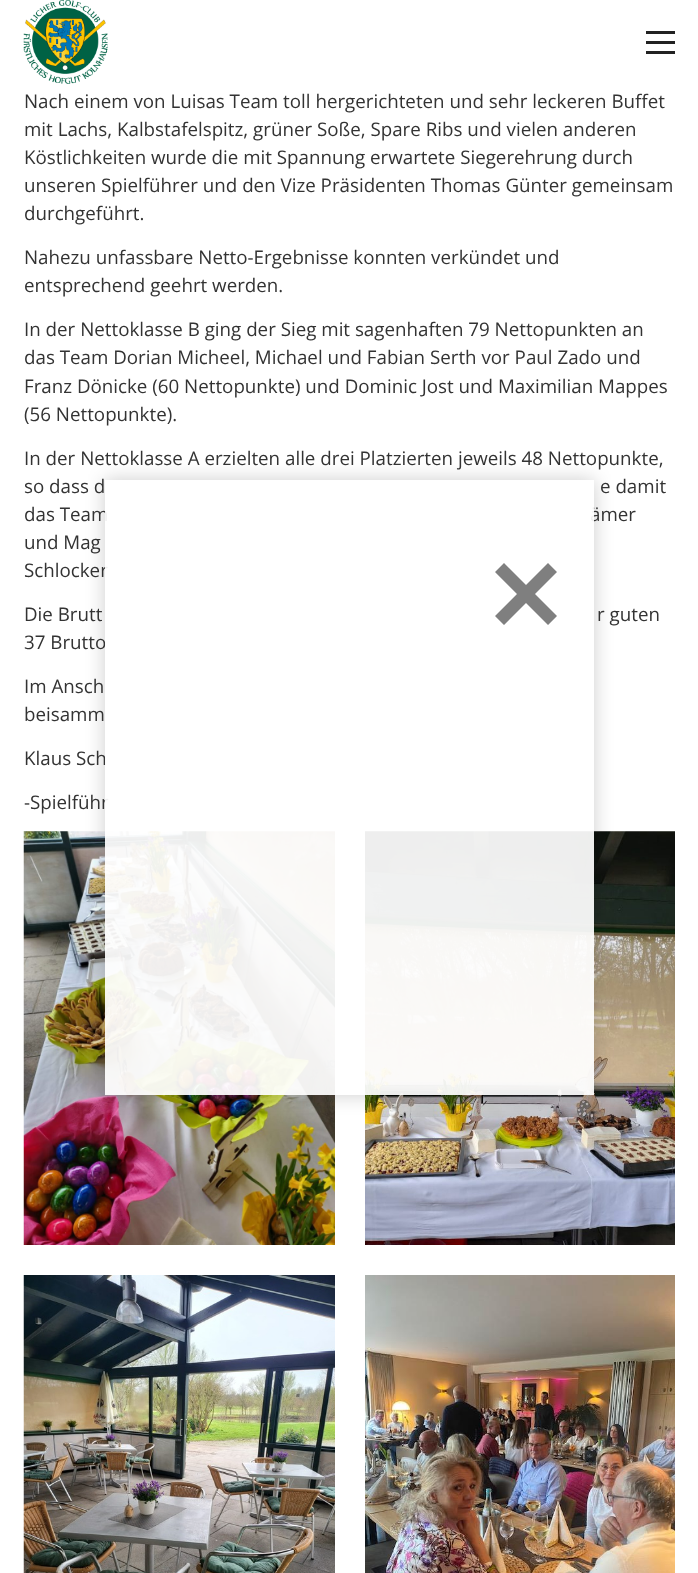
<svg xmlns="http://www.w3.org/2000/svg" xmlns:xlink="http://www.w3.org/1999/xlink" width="698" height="1573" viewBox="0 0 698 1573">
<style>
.cls-1{font:18.75px Open Sans;fill:#333333}
</style>
<defs>
<clipPath id="clip1"><path d="M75 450H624V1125H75ZM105 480H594V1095H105Z" clip-rule="evenodd"/></clipPath>
</defs>
<rect width="100%" height="100%" fill="#ffffff"/>
<image xlink:href="image0.png" x="23" y="0" width="85" height="84"/>
<rect fill="#222222" x="646" y="31" width="29" height="3"/>
<rect fill="#222222" x="646" y="41" width="29" height="3"/>
<rect fill="#222222" x="646" y="51" width="29" height="3"/>
<image xlink:href="image1.png" x="23" y="831" width="312" height="414"/>
<image xlink:href="image2.png" x="365" y="831" width="310" height="414"/>
<image xlink:href="image3.png" x="23" y="1275" width="312" height="298"/>
<image xlink:href="image4.png" x="365" y="1275" width="310" height="298"/>
<g clip-path="url(#clip1)">
<rect fill="#000000" fill-opacity="0.2" filter="blur(9.5px)" x="105" y="480" width="489" height="615"/>
</g>
<text class="cls-1"><tspan x="24" y="108">Nach einem von Luisas Team toll hergerichteten und sehr leckeren Buffet</tspan><tspan x="24" y="136">mit Lachs, Kalbstafelspitz, grüner Soße, Spare Ribs und vielen anderen</tspan><tspan x="24" y="164">Köstlichkeiten wurde die mit Spannung erwartete Siegerehrung durch</tspan><tspan x="24" y="192">unseren Spielführer und den Vize Präsidenten Thomas Günter gemeinsam</tspan><tspan x="24" y="220">durchgeführt.</tspan></text>
<text class="cls-1"><tspan x="24" y="264">Nahezu unfassbare Netto-Ergebnisse konnten verkündet und</tspan><tspan x="24" y="292">entsprechend geehrt werden.</tspan></text>
<text class="cls-1"><tspan x="24" y="336">In der Nettoklasse B ging der Sieg mit sagenhaften 79 Nettopunkten an</tspan><tspan x="24" y="364">das Team Dorian Micheel, Michael und Fabian Serth vor Paul Zado und</tspan><tspan x="24" y="393">Franz Dönicke (60 Nettopunkte) und Dominic Jost und Maximilian Mappes</tspan><tspan x="24" y="421">(56 Nettopunkte).</tspan></text>
<text class="cls-1"><tspan x="24" y="465">In der Nettoklasse A erzielten alle drei Platzierten jeweils 48 Nettopunkte,</tspan><tspan x="24" y="493">so dass d</tspan></text>
<text class="cls-1" x="600" y="493">e damit</text>
<text class="cls-1" x="24" y="521">das Team</text>
<text class="cls-1" x="590" y="521">ämer</text>
<text class="cls-1"><tspan x="24" y="549">und Mag</tspan><tspan x="24" y="577">Schlocker</tspan></text>
<text class="cls-1" x="24" y="621">Die Brutt</text>
<text class="cls-1" x="597" y="621">r guten</text>
<text class="cls-1" x="24" y="649">37 Brutto</text>
<text class="cls-1"><tspan x="24" y="693">Im Ansch</tspan><tspan x="24" y="721">beisamm</tspan></text>
<text class="cls-1" x="24" y="765">Klaus Sch</text>
<text class="cls-1" x="24" y="809">-Spielführ</text>
<rect fill="#ffffff" fill-opacity="0.93" x="105" y="480" width="489" height="615"/>
<path fill="#000000" fill-opacity="0.5" d="M557 572L535 594L557 616L548 625L526 603L504 625L495 616L517 594L495 572L504 563L526 585L548 563Z"/>
</svg>
